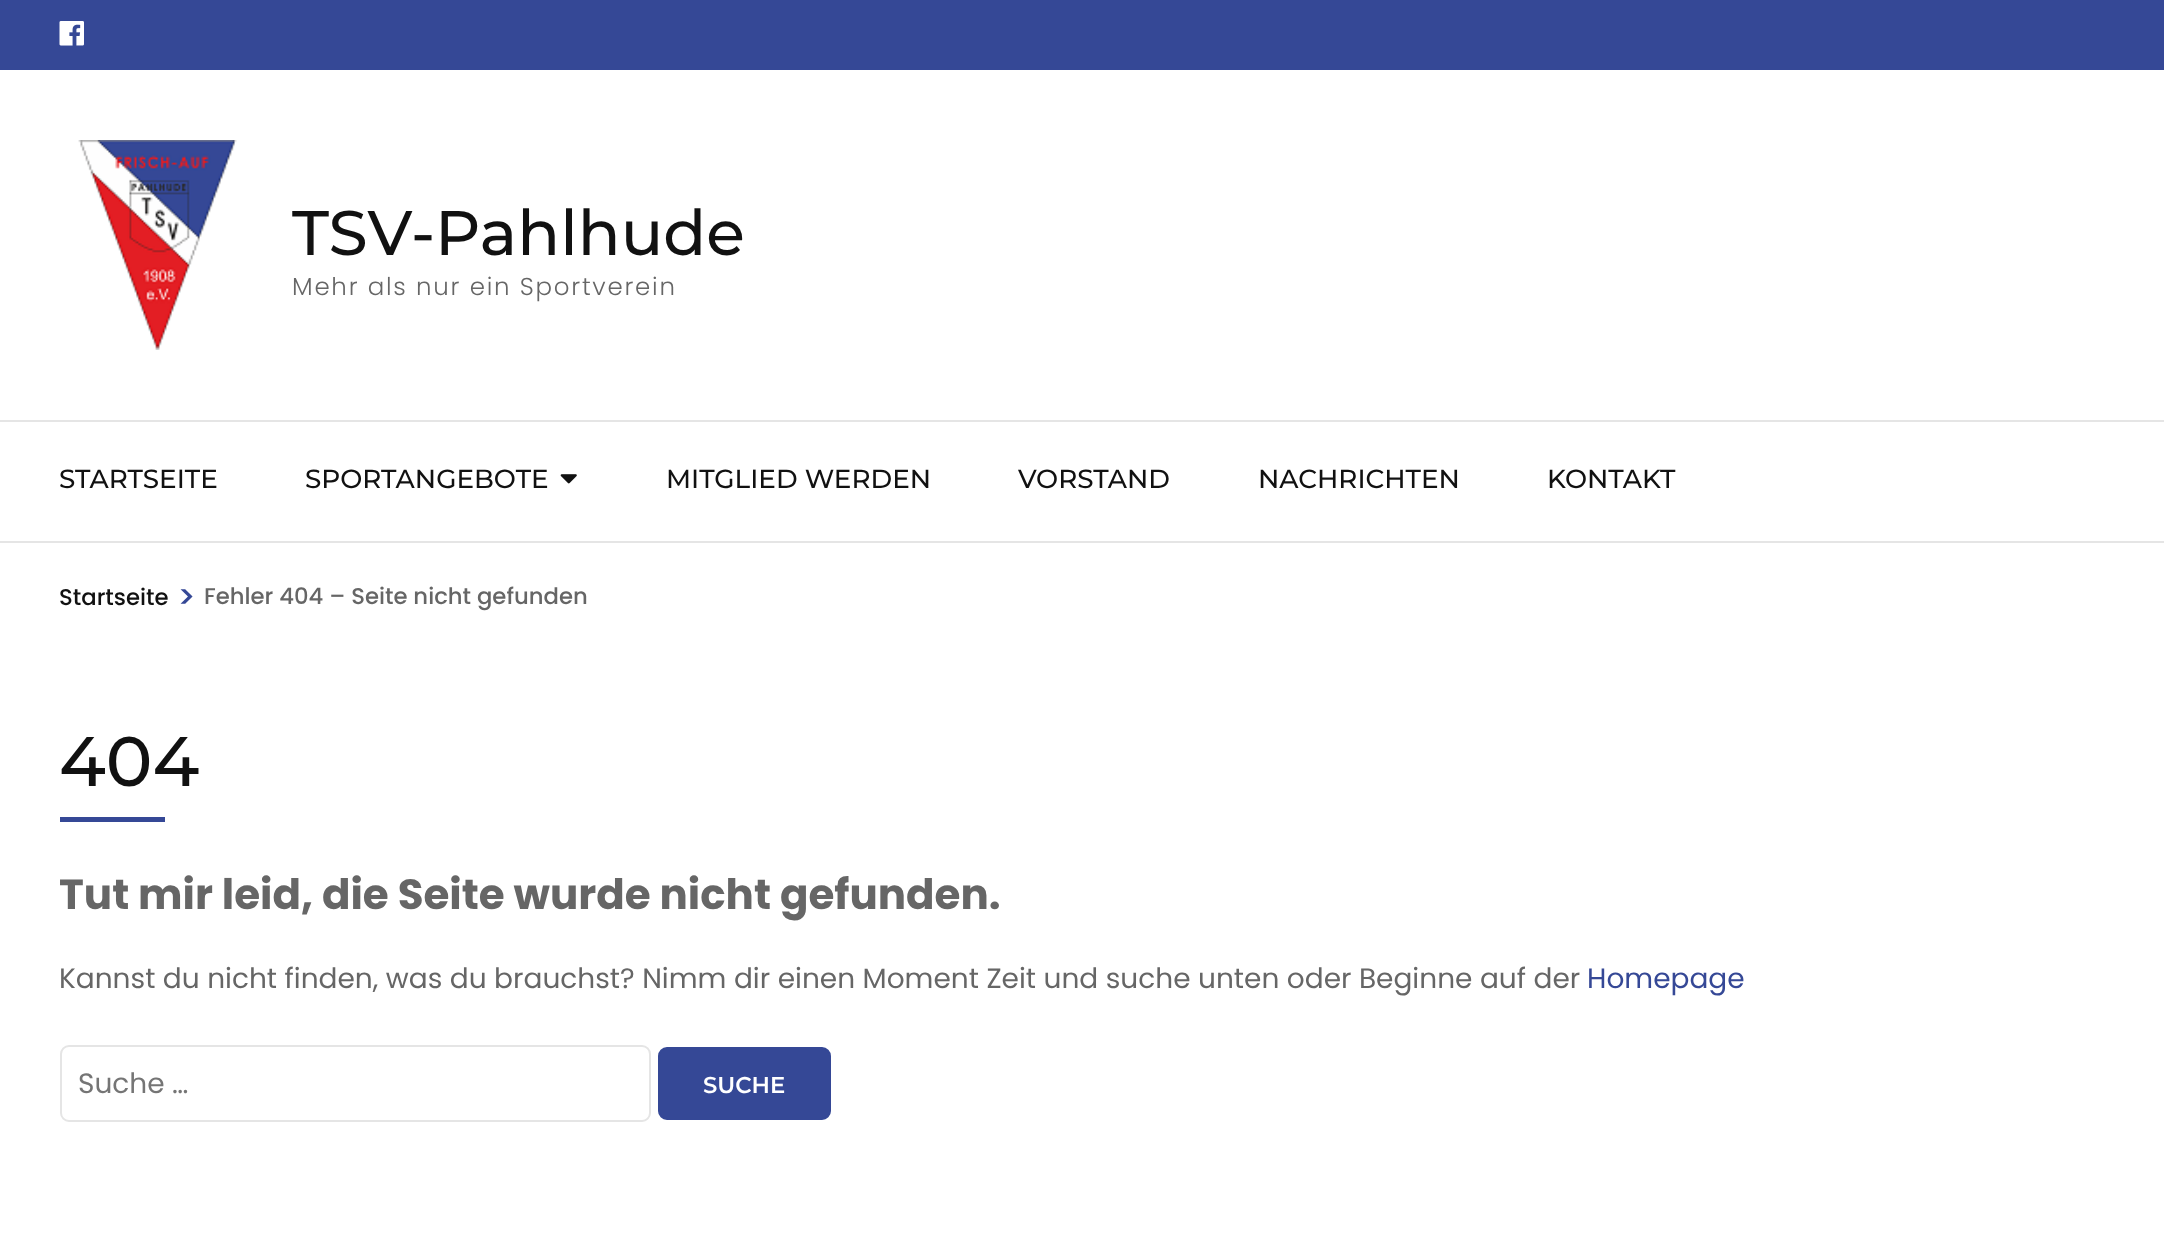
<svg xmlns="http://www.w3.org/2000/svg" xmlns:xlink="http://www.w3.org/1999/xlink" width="2164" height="1257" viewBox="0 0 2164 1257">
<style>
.cls-1{font:500 63px Montserrat;fill:#111111}
.cls-2{font:300 24.5px Poppins;letter-spacing:1.75px;fill:#666666}
.cls-3{font:500 26.25px Montserrat;fill:#111111}
.cls-4{font:500 22.75px Poppins;fill:#111111}
.cls-5{font:500 32px Poppins;fill:#354896}
.cls-6{font:500 22.75px Poppins;fill:#666666}
.cls-7{font:500 70px Montserrat;fill:#111111}
.cls-8{font:bold 42px Poppins;fill:#666666}
.cls-9{font:28px Poppins;fill:#666666}
.cls-10{font:28px Poppins;fill:#354896}
.cls-11{font:28px Poppins;fill:#757575}
.cls-12{font:600 22.75px Montserrat;fill:#ffffff}
</style>
<rect width="100%" height="100%" fill="#ffffff"/>
<rect fill="#354896" x="0" y="0" width="2164" height="70"/>
<image xlink:href="image0.png" x="59" y="21" width="25" height="25"/>
<image xlink:href="image1.png" x="78" y="140" width="159" height="210"/>
<rect fill="#e5e5e5" x="0" y="420" width="2164" height="2"/>
<rect fill="#e5e5e5" x="0" y="541" width="2164" height="2"/>
<image xlink:href="image2.png" x="560" y="474" width="17" height="10"/>
<rect fill="#354896" x="60" y="817" width="105" height="5"/>
<rect fill="none" stroke="#e5e5e5" stroke-width="2" x="61" y="1046" width="589" height="75" rx="8"/>
<rect fill="#354896" stroke="#354896" stroke-width="2" x="659" y="1048" width="171" height="71" rx="8"/>
<text class="cls-1" x="292" y="255">TSV-Pahlhude</text>
<text class="cls-2" x="292" y="295">Mehr als nur ein Sportverein</text>
<text class="cls-3" x="59" y="488">STARTSEITE</text>
<text class="cls-3" x="305" y="488">SPORTANGEBOTE</text>
<text class="cls-3" x="666" y="488">MITGLIED WERDEN</text>
<text class="cls-3" x="1018" y="488">VORSTAND</text>
<text class="cls-3" x="1258" y="488">NACHRICHTEN</text>
<text class="cls-3" x="1547" y="488">KONTAKT</text>
<text class="cls-4" x="59" y="605">Startseite</text>
<text class="cls-5" x="177" y="608">&gt;</text>
<text class="cls-6" x="204" y="604">Fehler 404 – Seite nicht gefunden</text>
<text class="cls-7" x="59" y="786">404</text>
<text class="cls-8" x="59" y="909">Tut mir leid, die Seite wurde nicht gefunden.</text>
<text class="cls-9" x="59" y="988">Kannst du nicht finden, was du brauchst? Nimm dir einen Moment Zeit und suche unten oder Beginne auf der</text>
<text class="cls-10" x="1587" y="988">Homepage</text>
<text class="cls-11" x="78" y="1093">Suche …</text>
<text class="cls-12" x="703" y="1093">SUCHE</text>
</svg>
